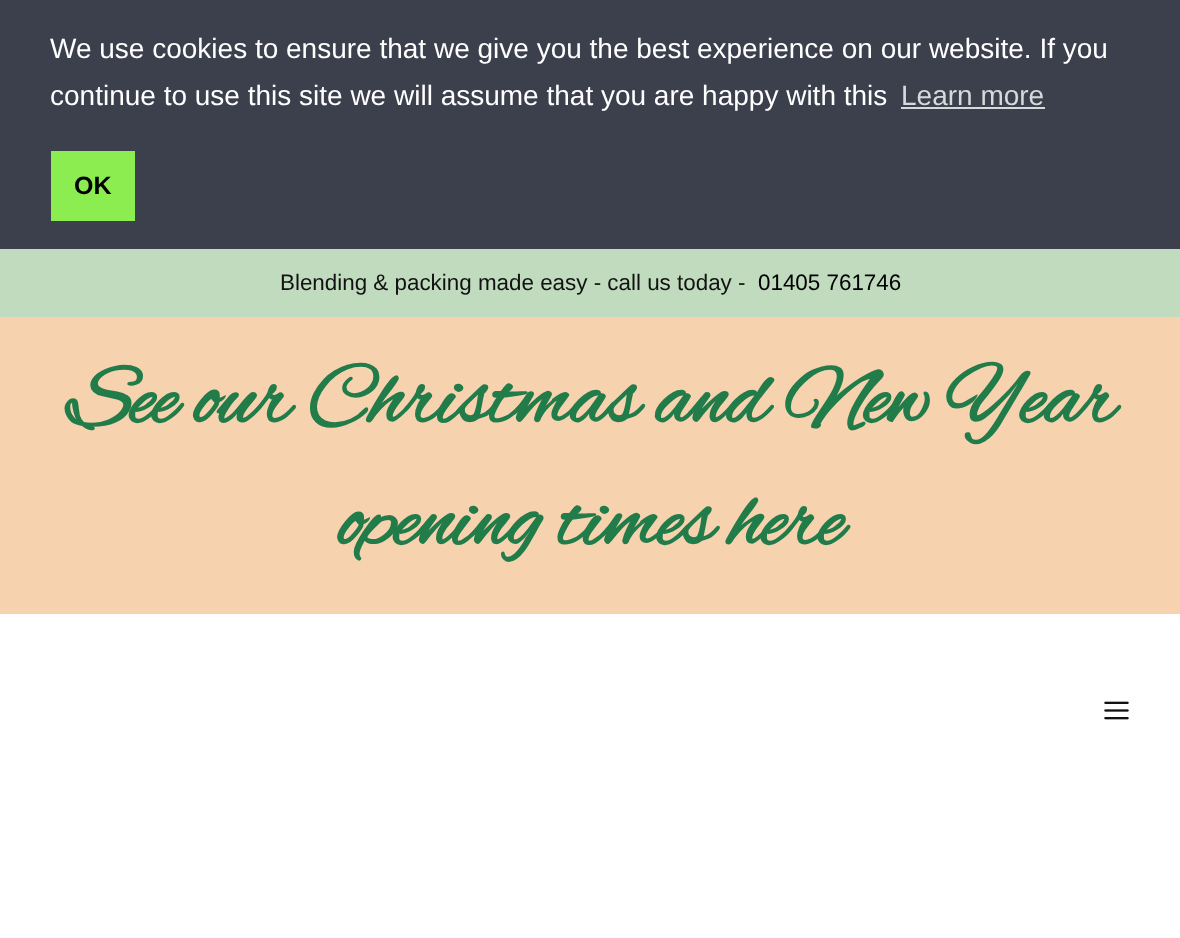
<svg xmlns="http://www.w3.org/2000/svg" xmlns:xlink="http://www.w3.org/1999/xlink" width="1180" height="938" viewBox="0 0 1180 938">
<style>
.cls-1{font:28px Liberation Sans;fill:#ffffff}
.cls-2{font:28px Liberation Sans;fill:#d8d9db}
.cls-3{font:bold 25px Liberation Sans;fill:#000000}
.cls-4{font:22.4px Liberation Sans;fill:#121212}
.cls-5{font:22.4px Liberation Sans;fill:#000000}
.cls-6{font:bold 87.5px Alex Brush;fill:#217c4a}
</style>
<rect width="100%" height="100%" fill="#ffffff"/>
<rect fill="#3c404d" x="0" y="0" width="1180" height="249"/>
<rect fill="#d8d9db" x="901" y="107" width="144" height="2"/>
<rect fill="#8bed4f" x="51" y="151" width="84" height="70"/>
<rect fill="#c0dbbd" x="0" y="249" width="1180" height="68"/>
<rect fill="#f6d2af" x="0" y="317" width="1180" height="297"/>
<image xlink:href="image0.png" x="1104" y="701" width="25" height="19"/>
<text class="cls-1"><tspan x="50" y="58">We use cookies to ensure that we give you the best experience on our website. If you</tspan><tspan x="50" y="105">continue to use this site we will assume that you are happy with this</tspan></text>
<text class="cls-2" x="901" y="105">Learn more</text>
<text class="cls-3" x="74" y="194">OK</text>
<text class="cls-4" x="280" y="290">Blending &amp; packing made easy - call us today -</text>
<text class="cls-5" x="758" y="290">01405 761746</text>
<text class="cls-6" x="66" y="422">See our Christmas and New Year</text>
<text class="cls-6" x="338" y="544">opening times here</text>
</svg>
